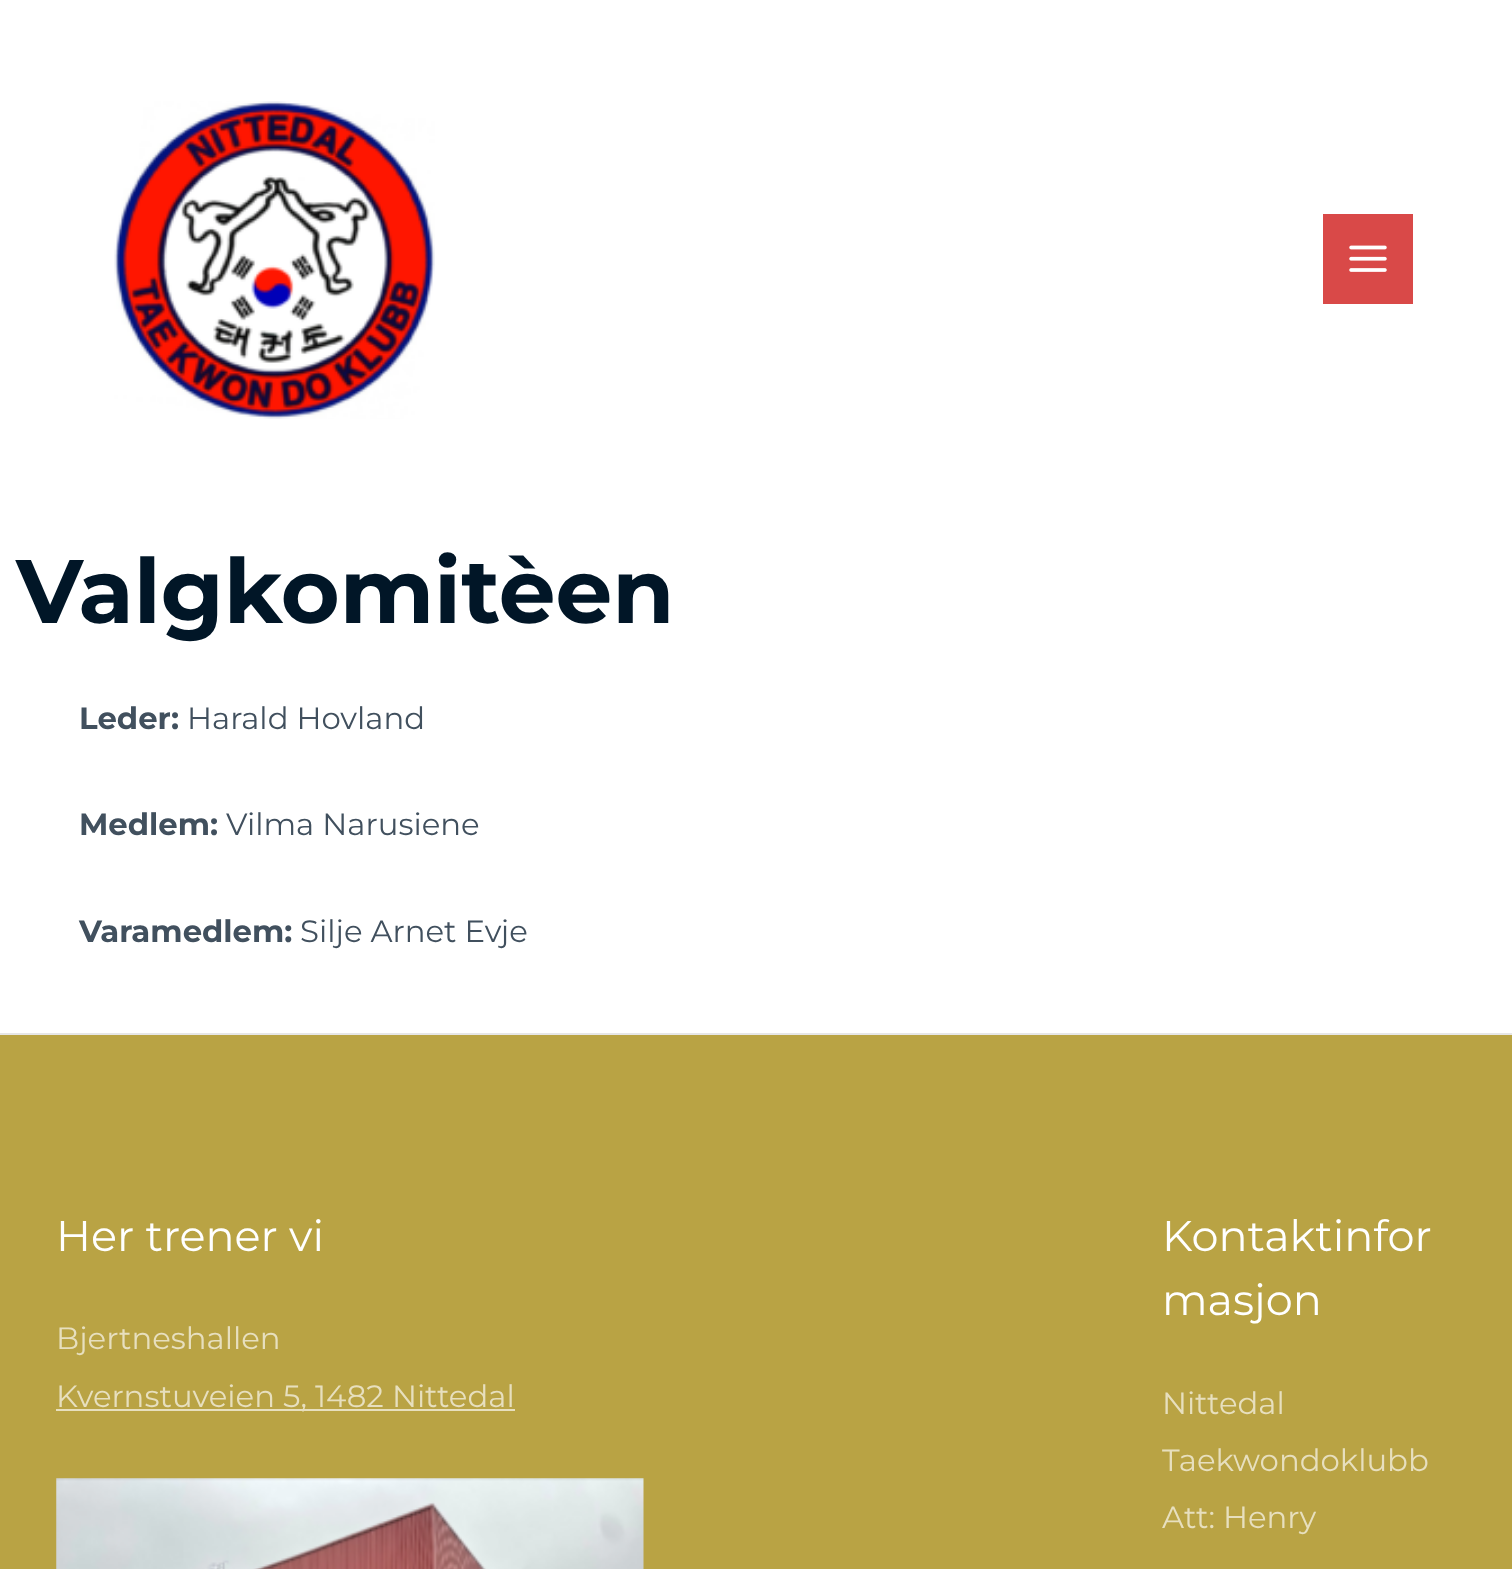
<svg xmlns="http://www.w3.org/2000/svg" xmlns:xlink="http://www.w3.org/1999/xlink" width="1512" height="1569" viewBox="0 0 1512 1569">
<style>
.cls-1{font:bold 90px Montserrat;fill:#011627}
.cls-2{font:bold 30.75px Montserrat;fill:#41505e}
.cls-3{font:30.75px Montserrat;fill:#41505e}
.cls-4{font:43px Montserrat;fill:#ffffff}
.cls-5{font:30.75px Montserrat;fill:#e7dfbe}
</style>
<rect width="100%" height="100%" fill="#ffffff"/>
<image xlink:href="image0.png" x="114" y="101" width="321" height="318"/>
<rect fill="#d94948" x="1323" y="214" width="90" height="90"/>
<image xlink:href="image1.png" x="1349" y="245" width="38" height="27"/>
<rect fill="#b9a344" x="0" y="1035" width="1512" height="534"/>
<rect fill="#e6e6e6" x="0" y="1033" width="1512" height="2"/>
<rect fill="#e7dfbe" x="56" y="1409" width="459" height="2"/>
<image xlink:href="image2.png" x="56" y="1478" width="588" height="91"/>
<text class="cls-1" x="16" y="623">Valgkomitèen</text>
<text class="cls-2" x="79" y="729">Leder:</text>
<text class="cls-3" x="187" y="729">Harald Hovland</text>
<text class="cls-2" x="79" y="835">Medlem:</text>
<text class="cls-3" x="226" y="835">Vilma Narusiene</text>
<text class="cls-2" x="79" y="942">Varamedlem:</text>
<text class="cls-3" x="300" y="942">Silje Arnet Evje</text>
<text class="cls-4" x="56" y="1251">Her trener vi</text>
<text class="cls-5"><tspan x="56" y="1349">Bjertneshallen</tspan><tspan x="56" y="1407">Kvernstuveien 5, 1482 Nittedal</tspan></text>
<text class="cls-4"><tspan x="1162" y="1251">Kontaktinfor</tspan><tspan x="1162" y="1315">masjon</tspan></text>
<text class="cls-5"><tspan x="1162" y="1414">Nittedal</tspan><tspan x="1162" y="1471">Taekwondoklubb</tspan><tspan x="1162" y="1528">Att: Henry</tspan></text>
</svg>
